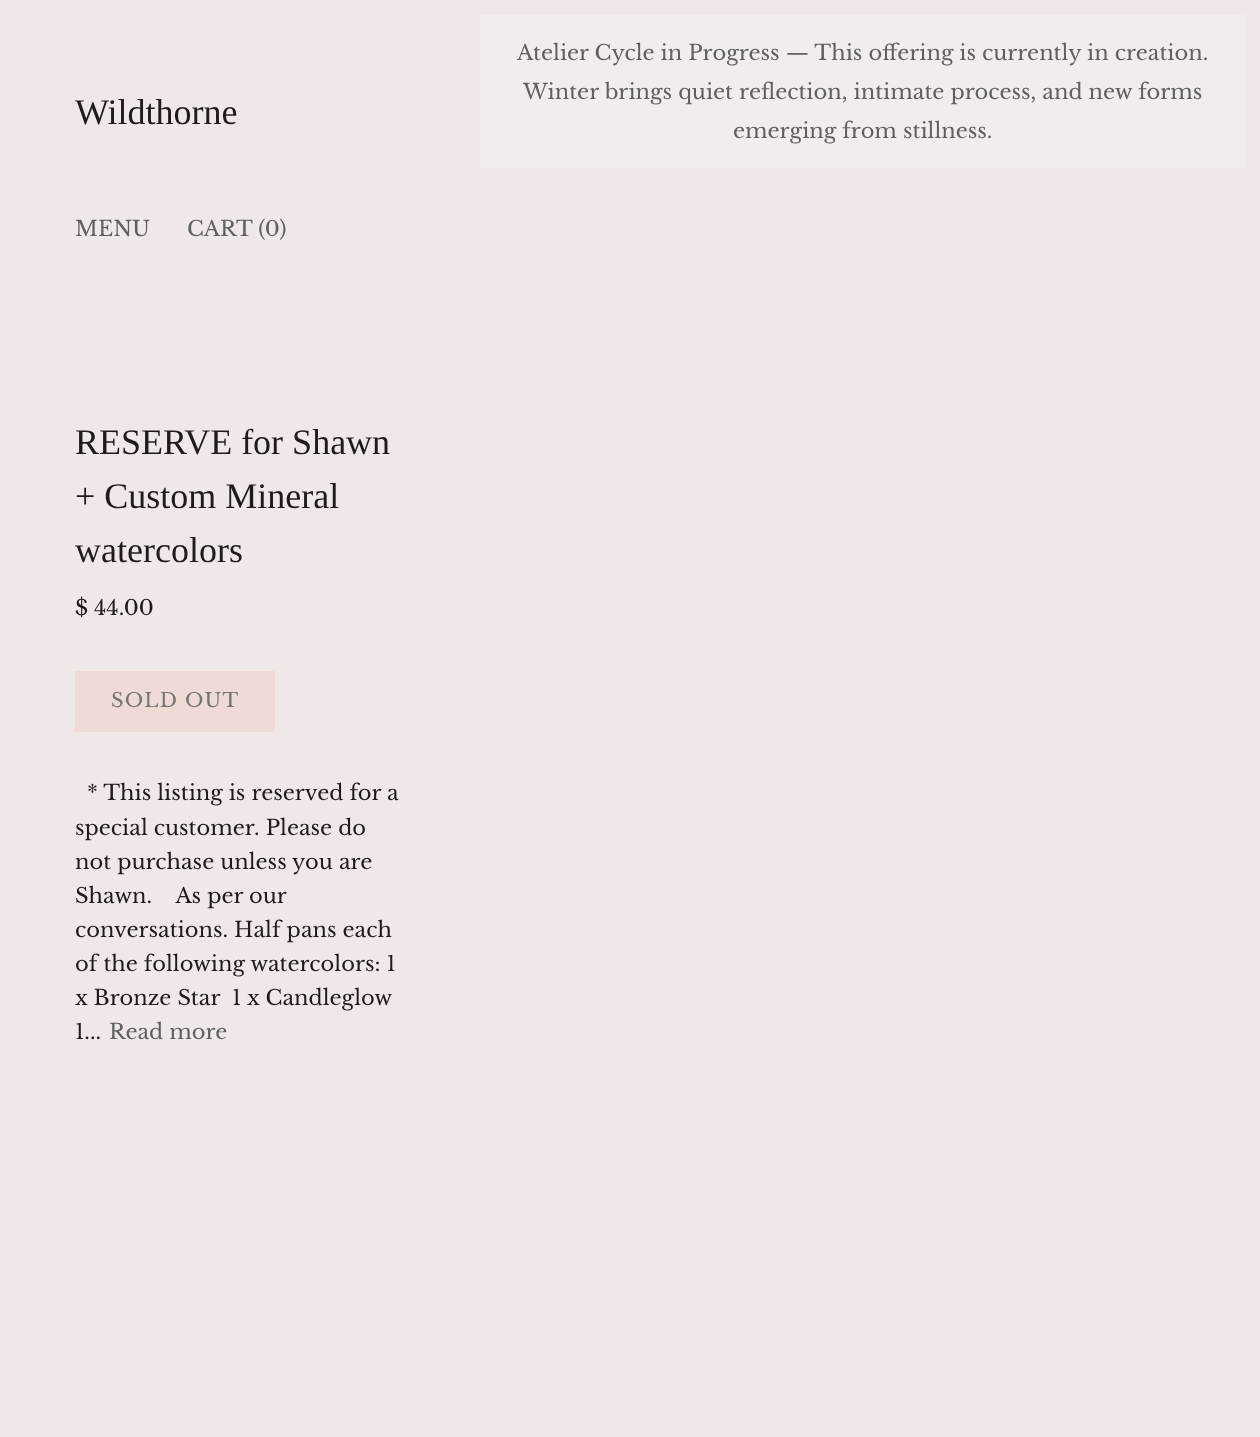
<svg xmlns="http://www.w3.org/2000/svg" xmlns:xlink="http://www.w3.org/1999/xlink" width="1260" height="1437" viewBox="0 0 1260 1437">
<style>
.cls-1{font:36px Liberation Serif;fill:#1f1b1b}
.cls-2{font:21px Libre Baskerville;fill:#606060}
.cls-3{font:21px Libre Baskerville;fill:#1f1b1b}
.cls-4{font:19.5px Libre Baskerville;letter-spacing:1.25px;fill:#787473}
</style>
<rect width="100%" height="100%" fill="#f0e8e6"/>
<rect fill="#f2ecea" x="480" y="15" width="765" height="153"/>
<rect fill="#eedbd5" x="75" y="671" width="200" height="61" rx="1.5"/>
<text class="cls-1" x="75" y="124">Wildthorne</text>
<text class="cls-2" x="75" y="236">MENU</text>
<text class="cls-2" x="187" y="236">CART (0)</text>
<text class="cls-2" x="517" y="60">Atelier Cycle in Progress — This offering is currently in creation.</text>
<text class="cls-2" x="523" y="99">Winter brings quiet reflection, intimate process, and new forms</text>
<text class="cls-2" x="733" y="138">emerging from stillness.</text>
<text class="cls-1"><tspan x="75" y="454">RESERVE for Shawn</tspan><tspan x="75" y="508">+ Custom Mineral</tspan><tspan x="75" y="562">watercolors</tspan></text>
<text class="cls-3" x="75" y="615">$ 44.00</text>
<text class="cls-4" x="111" y="707">SOLD OUT</text>
<text class="cls-3" x="87" y="800">* This listing is reserved for a</text>
<text class="cls-3" xml:space="preserve"><tspan x="75" y="835">special customer. Please do</tspan><tspan x="75" y="869">not purchase unless you are</tspan><tspan x="75" y="903">Shawn.    As per our</tspan><tspan x="75" y="937">conversations. Half pans each</tspan><tspan x="75" y="971">of the following watercolors: 1</tspan><tspan x="75" y="1005">x Bronze Star  1 x Candleglow</tspan><tspan x="75" y="1039">1...</tspan></text>
<text class="cls-2" x="109" y="1039">Read more</text>
</svg>
